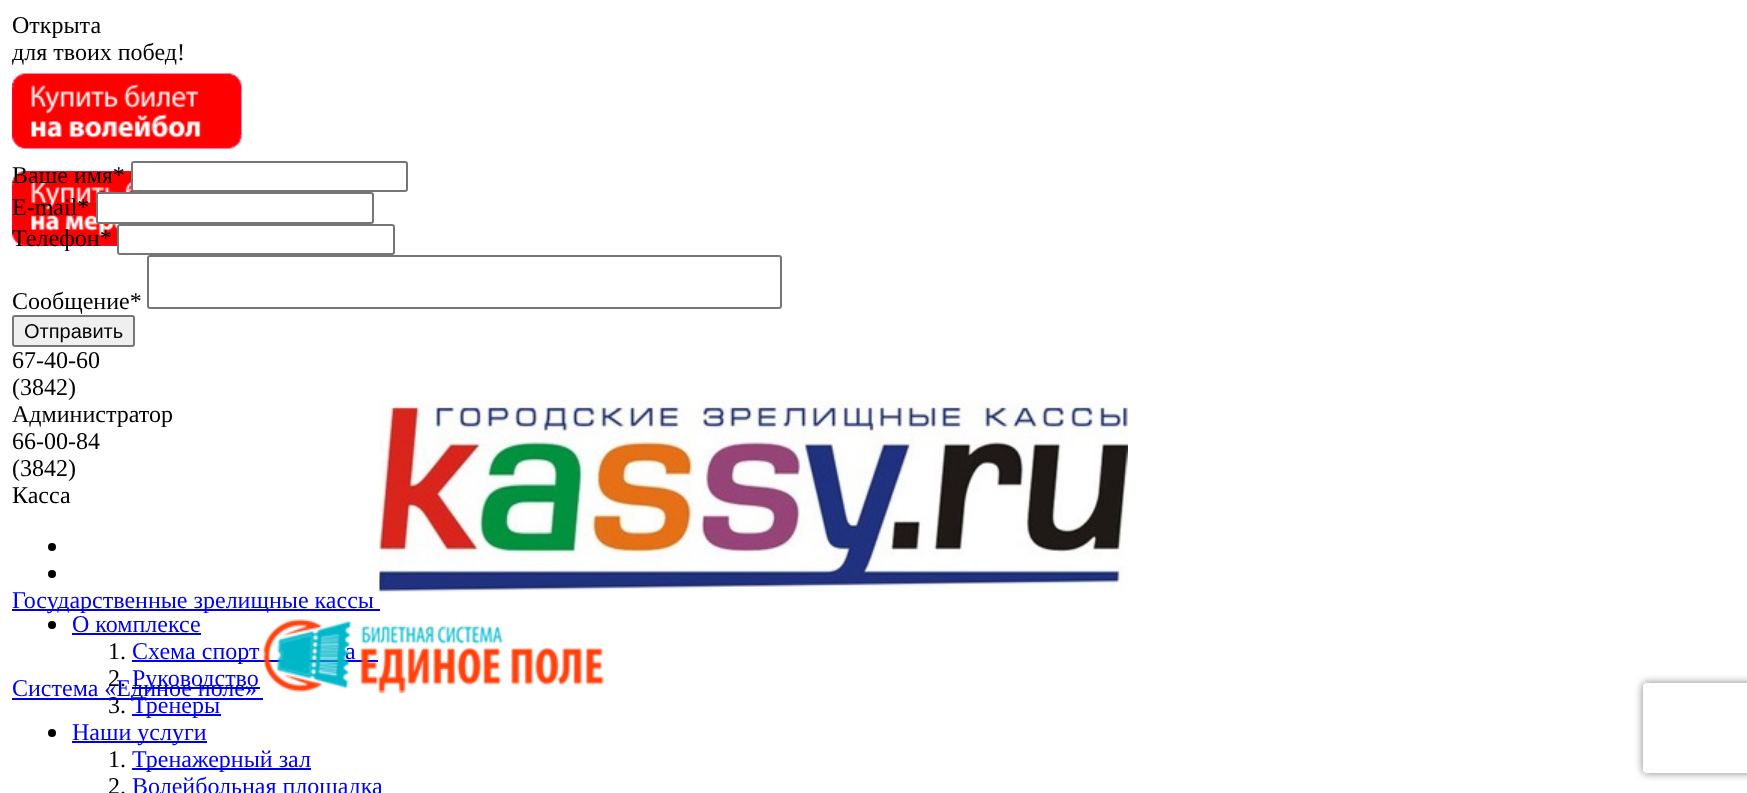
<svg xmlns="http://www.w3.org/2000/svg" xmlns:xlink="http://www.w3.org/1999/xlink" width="1747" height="793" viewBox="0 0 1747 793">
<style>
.cls-1{font:24px Liberation Serif;fill:#000000}
.cls-2{font:20px Liberation Sans;fill:#000000}
.cls-3{font:24px Liberation Serif;fill:#0000ee}
</style>
<defs>
<clipPath id="clip1"><path d="M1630 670H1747V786H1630ZM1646 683H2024C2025.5 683 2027 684.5 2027 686V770C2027 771.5 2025.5 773 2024 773H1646C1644.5 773 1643 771.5 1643 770V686C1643 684.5 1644.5 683 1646 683Z" clip-rule="evenodd"/></clipPath>
</defs>
<rect width="100%" height="100%" fill="#ffffff"/>
<image xlink:href="image0.png" x="12" y="73" width="230" height="76"/>
<image xlink:href="image1.png" x="12" y="171" width="122" height="75"/>
<rect fill="#ffffff" stroke="#767676" stroke-width="2" x="132" y="162" width="275" height="29" rx="2"/>
<rect fill="#ffffff" stroke="#767676" stroke-width="2" x="97" y="193" width="276" height="30" rx="2"/>
<rect fill="#ffffff" stroke="#767676" stroke-width="2" x="118" y="225" width="276" height="29" rx="2"/>
<rect fill="none" stroke="#767676" stroke-width="2" x="148" y="256" width="633" height="52" rx="2"/>
<rect fill="#efefef" stroke="#767676" stroke-width="2" x="13" y="316" width="121" height="30" rx="2"/>
<circle fill="#000000" cx="52" cy="547" r="4"/>
<circle fill="#000000" cx="52" cy="574" r="4"/>
<circle fill="#000000" cx="52" cy="625" r="4"/>
<rect fill="#0000ee" x="72" y="633" width="129" height="2"/>
<rect fill="#0000ee" x="132" y="660" width="246" height="2"/>
<rect fill="#0000ee" x="132" y="687" width="128" height="2"/>
<rect fill="#0000ee" x="132" y="714" width="89" height="2"/>
<circle fill="#000000" cx="52" cy="733" r="4"/>
<rect fill="#0000ee" x="72" y="741" width="135" height="2"/>
<rect fill="#0000ee" x="132" y="768" width="179" height="2"/>
<image xlink:href="image2.png" x="379" y="399" width="749" height="194"/>
<rect fill="#0000ee" x="12" y="609" width="368" height="2"/>
<g clip-path="url(#clip1)">
<rect fill="#808080" filter="blur(4px)" x="1643" y="683" width="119" height="90" rx="3"/>
</g>
<text class="cls-1"><tspan x="12" y="33">Открыта</tspan><tspan x="12" y="60">для твоих побед!</tspan></text>
<text class="cls-1"><tspan x="12" y="183">Ваше имя*</tspan><tspan x="12" y="215">E-mail*</tspan><tspan x="12" y="246">Телефон*</tspan></text>
<text class="cls-1" x="12" y="309">Сообщение*</text>
<text class="cls-2" x="24" y="338">Отправить</text>
<text class="cls-1"><tspan x="12" y="368">67-40-60</tspan><tspan x="12" y="395">(3842)</tspan><tspan x="12" y="422">Администратор</tspan><tspan x="12" y="449">66-00-84</tspan><tspan x="12" y="476">(3842)</tspan><tspan x="12" y="503">Касса</tspan></text>
<text class="cls-3" x="72" y="632">О комплексе</text>
<text class="cls-1" x="108" y="659">1.</text>
<text class="cls-3" x="132" y="659">Схема спорт</text>
<text class="cls-3" x="345" y="659">а</text>
<text class="cls-1" x="108" y="686">2.</text>
<text class="cls-3" x="132" y="686">Руководство</text>
<text class="cls-1" x="108" y="713">3.</text>
<text class="cls-3" x="132" y="713">Тренеры</text>
<text class="cls-3" x="72" y="740">Наши услуги</text>
<text class="cls-1" x="108" y="767">1.</text>
<text class="cls-3" x="132" y="767">Тренажерный зал</text>
<text class="cls-1" x="108" y="794">2.</text>
<text class="cls-3" x="132" y="794">Волейбольная площадка</text>
<text class="cls-3" x="12" y="608">Государственные зрелищные кассы</text>
<rect fill="#0000ee" x="12" y="698" width="251" height="2"/>
<text class="cls-3" x="12" y="696">Система «Единое поле»</text>
<image xlink:href="image3.png" x="262" y="619" width="342" height="75"/>
</svg>
